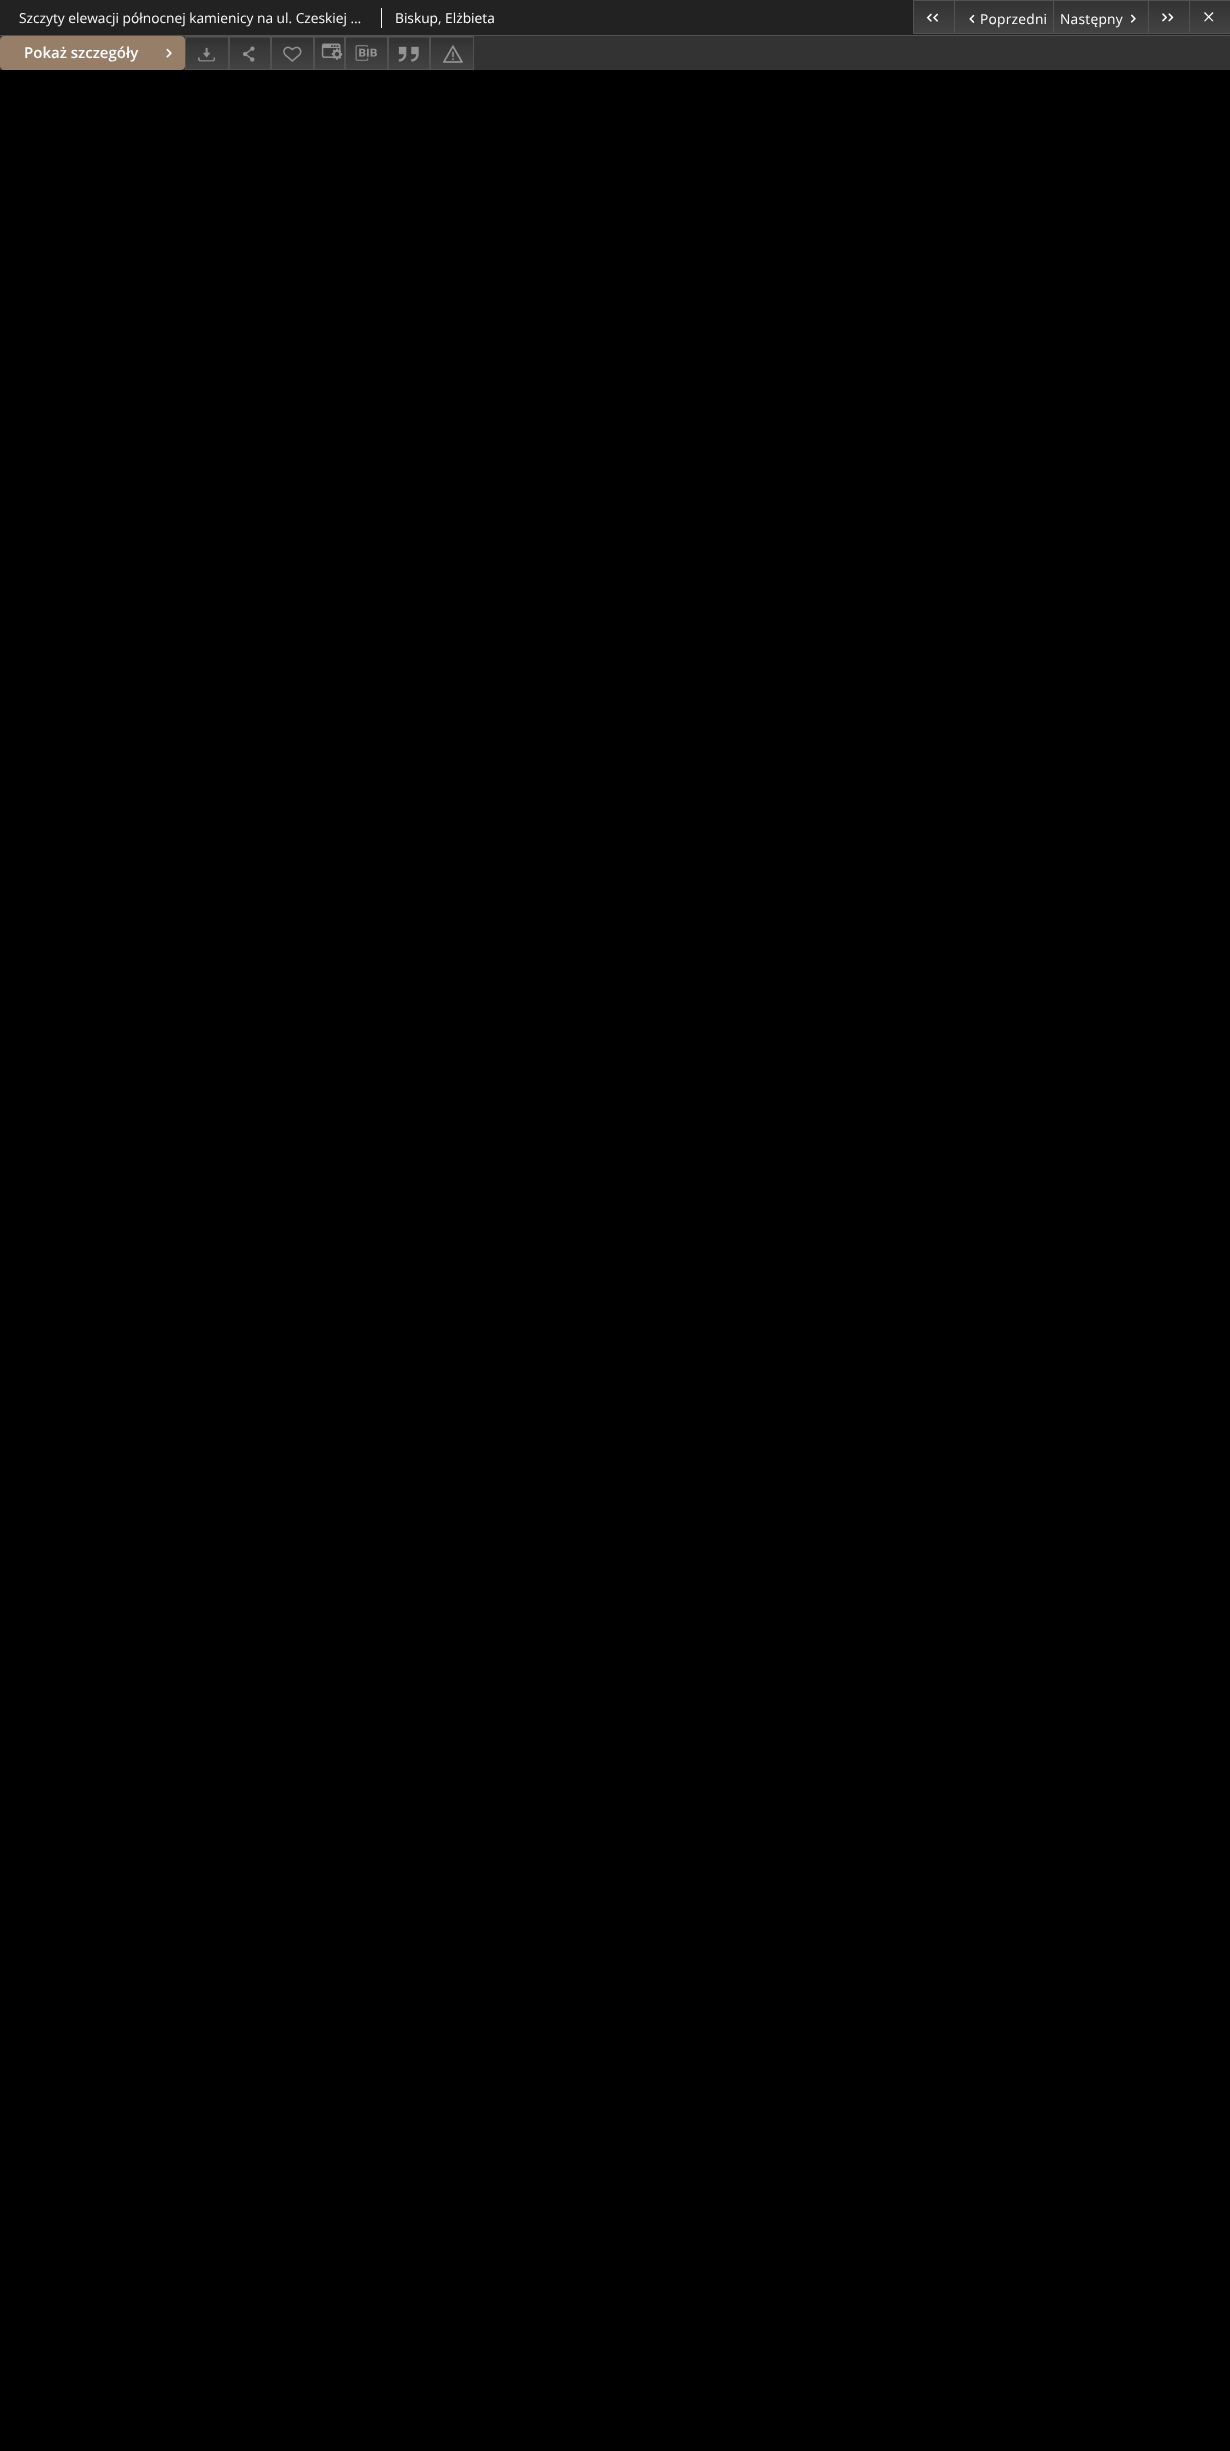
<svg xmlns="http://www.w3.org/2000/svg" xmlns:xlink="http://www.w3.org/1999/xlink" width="1230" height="2451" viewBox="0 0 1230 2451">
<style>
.cls-1{font:13.75px Open Sans;fill:#f9f9f9}
.cls-2{font:13.75px Open Sans;fill:#ffffff}
.cls-3{font:13.75px Open Sans;letter-spacing:0.25px;fill:#ffffff}
.cls-4{font:600 15px Open Sans;fill:#ffffff}
</style>
<defs>
<linearGradient id="g1" gradientUnits="userSpaceOnUse" x1="934" y1="1.2" x2="934" y2="33"><stop offset="0" stop-color="#333333"/><stop offset="1" stop-color="#434343"/></linearGradient>
<linearGradient id="g2" gradientUnits="userSpaceOnUse" x1="1004" y1="1.2" x2="1004" y2="33"><stop offset="0" stop-color="#333333"/><stop offset="1" stop-color="#434343"/></linearGradient>
<linearGradient id="g3" gradientUnits="userSpaceOnUse" x1="1101" y1="1.2" x2="1101" y2="33"><stop offset="0" stop-color="#333333"/><stop offset="1" stop-color="#434343"/></linearGradient>
<linearGradient id="g4" gradientUnits="userSpaceOnUse" x1="1169" y1="1.2" x2="1169" y2="33"><stop offset="0" stop-color="#333333"/><stop offset="1" stop-color="#434343"/></linearGradient>
<linearGradient id="g5" gradientUnits="userSpaceOnUse" x1="1210" y1="1.2" x2="1210" y2="33"><stop offset="0" stop-color="#333333"/><stop offset="1" stop-color="#434343"/></linearGradient>
<linearGradient id="g6" gradientUnits="userSpaceOnUse" x1="207" y1="6.2" x2="207" y2="38"><stop offset="0" stop-color="#333333"/><stop offset="1" stop-color="#434343"/></linearGradient>
<linearGradient id="g7" gradientUnits="userSpaceOnUse" x1="207" y1="38" x2="207" y2="69"><stop offset="0" stop-color="#333333"/><stop offset="1" stop-color="#434343"/></linearGradient>
<linearGradient id="g8" gradientUnits="userSpaceOnUse" x1="250" y1="6.2" x2="250" y2="38"><stop offset="0" stop-color="#333333"/><stop offset="1" stop-color="#434343"/></linearGradient>
<linearGradient id="g9" gradientUnits="userSpaceOnUse" x1="250" y1="38" x2="250" y2="69"><stop offset="0" stop-color="#333333"/><stop offset="1" stop-color="#434343"/></linearGradient>
<linearGradient id="g10" gradientUnits="userSpaceOnUse" x1="293" y1="6.2" x2="293" y2="38"><stop offset="0" stop-color="#333333"/><stop offset="1" stop-color="#434343"/></linearGradient>
<linearGradient id="g11" gradientUnits="userSpaceOnUse" x1="293" y1="38" x2="293" y2="69"><stop offset="0" stop-color="#333333"/><stop offset="1" stop-color="#434343"/></linearGradient>
<linearGradient id="g12" gradientUnits="userSpaceOnUse" x1="329" y1="6.2" x2="329" y2="38"><stop offset="0" stop-color="#333333"/><stop offset="1" stop-color="#434343"/></linearGradient>
<linearGradient id="g13" gradientUnits="userSpaceOnUse" x1="329" y1="38" x2="329" y2="69"><stop offset="0" stop-color="#333333"/><stop offset="1" stop-color="#434343"/></linearGradient>
<linearGradient id="g14" gradientUnits="userSpaceOnUse" x1="366" y1="6.2" x2="366" y2="38"><stop offset="0" stop-color="#333333"/><stop offset="1" stop-color="#434343"/></linearGradient>
<linearGradient id="g15" gradientUnits="userSpaceOnUse" x1="366" y1="38" x2="366" y2="69"><stop offset="0" stop-color="#333333"/><stop offset="1" stop-color="#434343"/></linearGradient>
<linearGradient id="g16" gradientUnits="userSpaceOnUse" x1="409" y1="6.2" x2="409" y2="38"><stop offset="0" stop-color="#333333"/><stop offset="1" stop-color="#434343"/></linearGradient>
<linearGradient id="g17" gradientUnits="userSpaceOnUse" x1="409" y1="38" x2="409" y2="69"><stop offset="0" stop-color="#333333"/><stop offset="1" stop-color="#434343"/></linearGradient>
<linearGradient id="g18" gradientUnits="userSpaceOnUse" x1="452" y1="6.2" x2="452" y2="38"><stop offset="0" stop-color="#333333"/><stop offset="1" stop-color="#434343"/></linearGradient>
<linearGradient id="g19" gradientUnits="userSpaceOnUse" x1="452" y1="38" x2="452" y2="69"><stop offset="0" stop-color="#333333"/><stop offset="1" stop-color="#434343"/></linearGradient>
</defs>
<rect width="100%" height="100%" fill="#333333"/>
<rect fill="#222222" x="0" y="0" width="1230" height="35"/>
<rect fill="#525252" x="0" y="35" width="1230" height="1"/>
<rect fill="#f5f5f5" x="381" y="8" width="1" height="20"/>
<rect fill="url(#g1)" x="914" y="1" width="40" height="32"/>
<rect fill="#525252" x="913" y="0" width="317" height="1"/>
<rect fill="#525252" x="913" y="33" width="317" height="1"/>
<rect fill="#525252" x="913" y="0" width="1" height="34"/>
<image xlink:href="image0.png" x="926" y="13" width="6" height="9"/>
<image xlink:href="image1.png" x="933" y="13" width="5" height="9"/>
<rect fill="url(#g2)" x="955" y="1" width="98" height="32"/>
<rect fill="#525252" x="954" y="0" width="1" height="34"/>
<image xlink:href="image2.png" x="969" y="14" width="6" height="9"/>
<rect fill="url(#g3)" x="1054" y="1" width="94" height="32"/>
<rect fill="#525252" x="1053" y="0" width="1" height="34"/>
<image xlink:href="image3.png" x="1131" y="14" width="5" height="9"/>
<rect fill="url(#g4)" x="1149" y="1" width="40" height="32"/>
<rect fill="#525252" x="1148" y="0" width="1" height="34"/>
<image xlink:href="image4.png" x="1162" y="13" width="6" height="9"/>
<image xlink:href="image5.png" x="1168" y="13" width="6" height="9"/>
<rect fill="url(#g5)" x="1190" y="1" width="40" height="32"/>
<rect fill="#525252" x="1189" y="0" width="1" height="34"/>
<path fill="#ffffff" d="M1204 21L1212.5 12L1213.5 13L1205 21.5Z"/>
<path fill="#ffffff" d="M1205 12L1213.5 21L1212.5 21.5L1204 13Z"/>
<rect fill="#977e69" stroke="#977e69" x="0.5" y="36.5" width="184" height="33" rx="3.5"/>
<image xlink:href="image6.png" x="166" y="48" width="6" height="10"/>
<rect fill="url(#g6)" x="185" y="37" width="44" height="1"/>
<rect fill="url(#g7)" x="186" y="43" width="42" height="26"/>
<rect fill="none" stroke="#525252" x="185.5" y="36.5" width="43" height="33"/>
<image xlink:href="image7.png" x="198" y="47" width="17" height="15"/>
<rect fill="url(#g8)" x="229" y="37" width="42" height="1"/>
<rect fill="url(#g9)" x="230" y="43" width="40" height="26"/>
<rect fill="none" stroke="#525252" x="229.5" y="36.5" width="41" height="33"/>
<image xlink:href="image8.png" x="243" y="46" width="12" height="16"/>
<rect fill="url(#g10)" x="271" y="37" width="43" height="1"/>
<rect fill="url(#g11)" x="272" y="43" width="41" height="26"/>
<rect fill="none" stroke="#525252" x="271.5" y="36.5" width="42" height="33"/>
<image xlink:href="image9.png" x="283" y="46" width="19" height="16"/>
<rect fill="url(#g12)" x="314" y="37" width="31" height="1"/>
<rect fill="url(#g13)" x="315" y="43" width="29" height="26"/>
<rect fill="none" stroke="#525252" x="314.5" y="36.5" width="30" height="33"/>
<image xlink:href="image10.png" x="321" y="43" width="22" height="17"/>
<rect fill="url(#g14)" x="345" y="37" width="43" height="1"/>
<rect fill="url(#g15)" x="346" y="43" width="41" height="26"/>
<rect fill="none" stroke="#525252" x="345.5" y="36.5" width="42" height="33"/>
<image xlink:href="image11.png" x="355" y="45" width="22" height="16"/>
<rect fill="url(#g16)" x="388" y="37" width="42" height="1"/>
<rect fill="url(#g17)" x="389" y="43" width="40" height="26"/>
<rect fill="none" stroke="#525252" x="388.5" y="36.5" width="41" height="33"/>
<image xlink:href="image12.png" x="398" y="46" width="21" height="16"/>
<rect fill="url(#g18)" x="430" y="37" width="44" height="1"/>
<rect fill="url(#g19)" x="431" y="43" width="42" height="26"/>
<rect fill="none" stroke="#525252" x="430.5" y="36.5" width="43" height="33"/>
<image xlink:href="image13.png" x="443" y="45" width="20" height="18"/>
<rect fill="#000000" x="0" y="70" width="1230" height="2381"/>
<text class="cls-1" x="19" y="23">Szczyty elewacji północnej kamienicy na ul. Czeskiej …</text>
<text class="cls-2" x="395" y="23">Biskup, Elżbieta</text>
<text class="cls-3" x="980" y="24">Poprzedni</text>
<text class="cls-3" x="1060" y="24">Następny</text>
<text class="cls-4" x="24" y="58">Pokaż szczegóły</text>
</svg>
